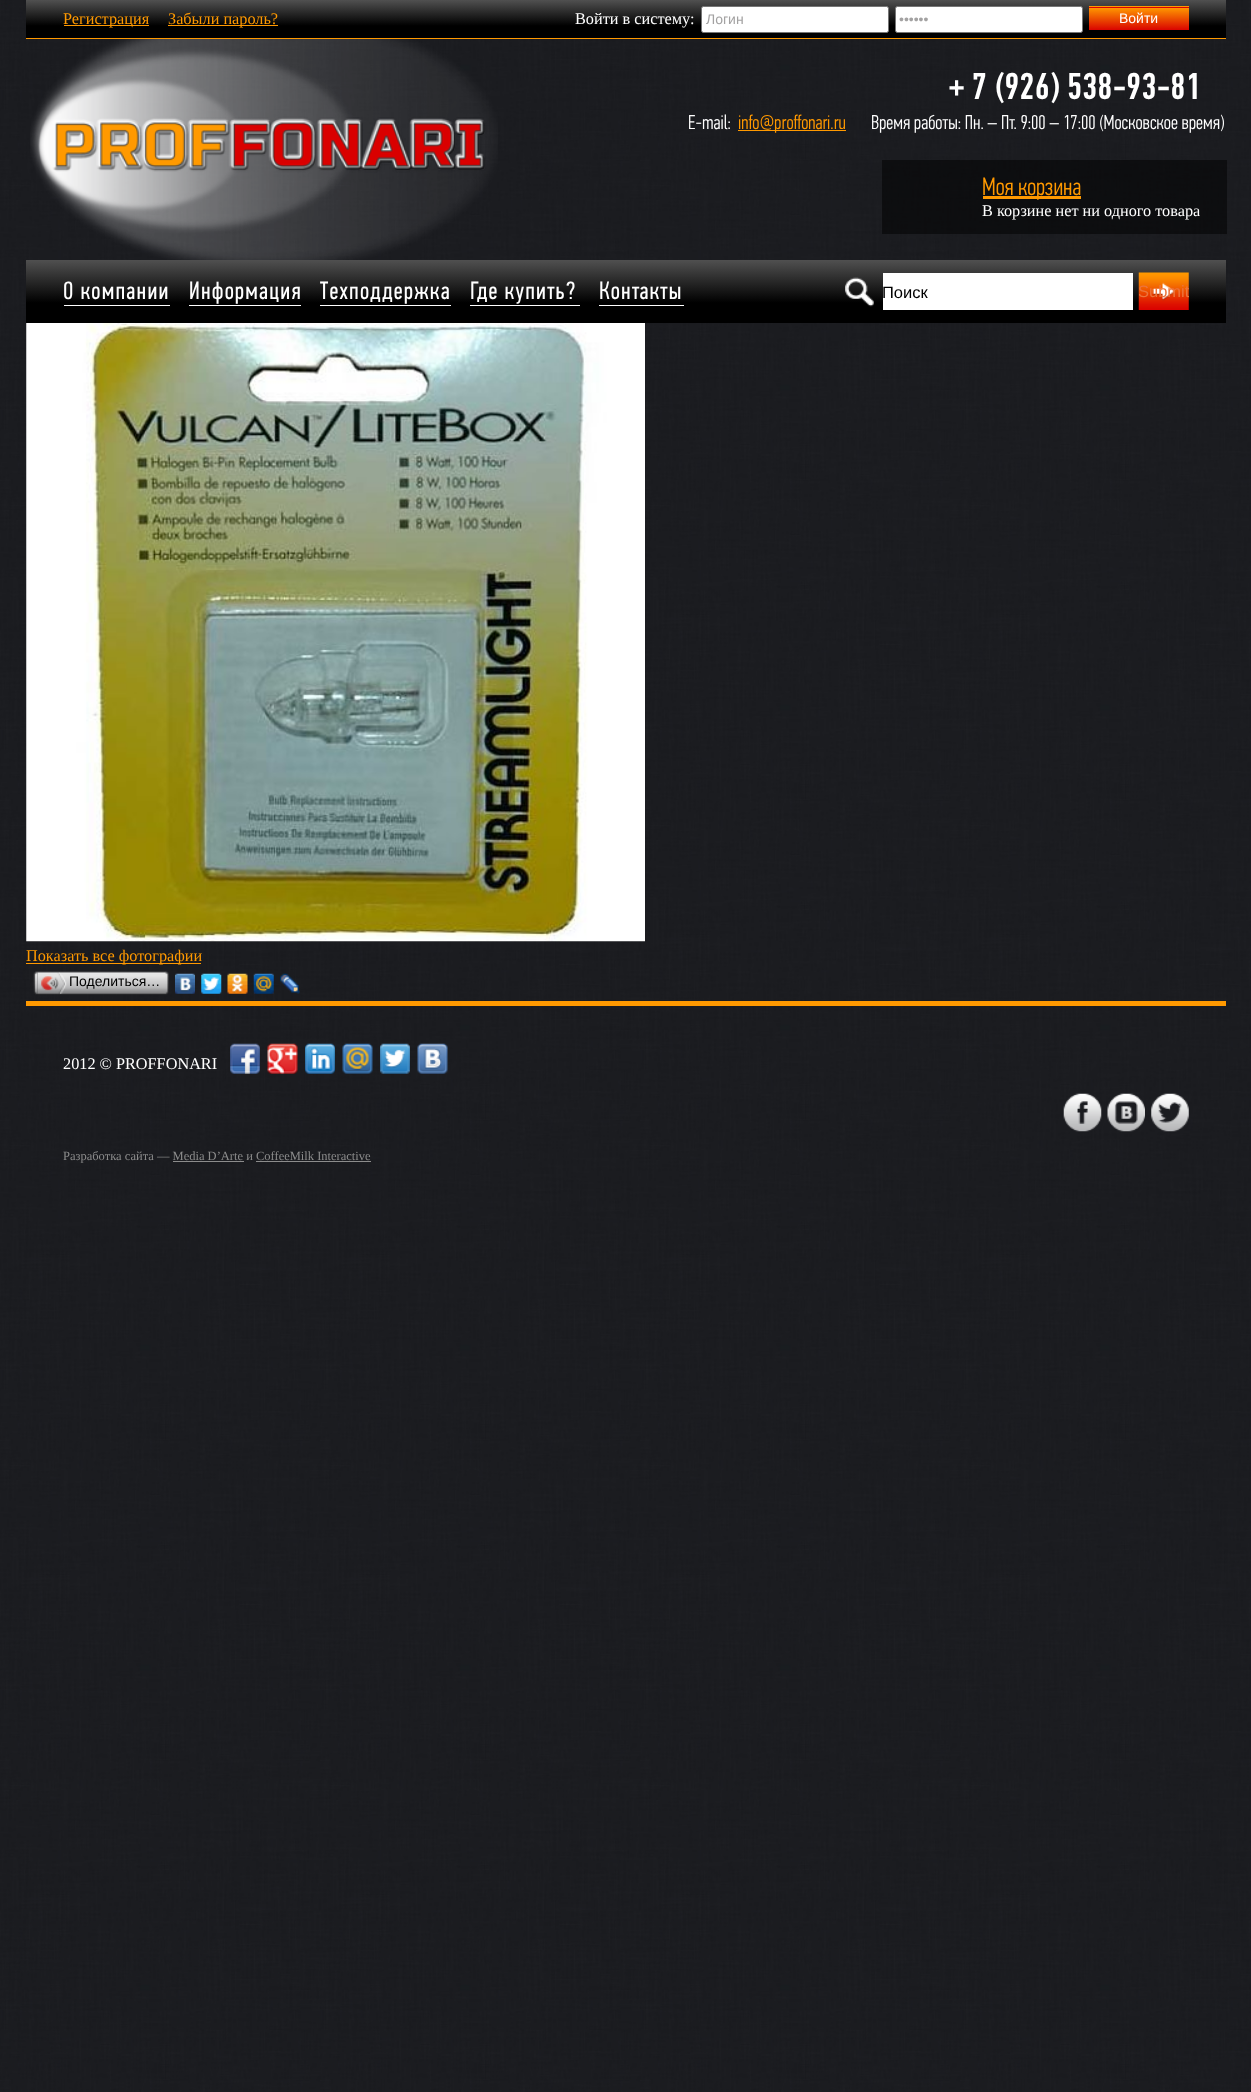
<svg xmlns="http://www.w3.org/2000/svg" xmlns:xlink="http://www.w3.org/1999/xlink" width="1251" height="2092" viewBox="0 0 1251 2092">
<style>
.cls-1{font:16.25px Liberation Serif;fill:#ff9900}
.cls-2{font:16.25px Liberation Serif;fill:#ffffff}
.cls-3{font:14px Liberation Sans;fill:#a3a2a2}
.cls-4{font:14px Liberation Sans;fill:#ffffff}
.cls-5{font:500 37.5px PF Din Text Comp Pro;fill:#ffffff}
.cls-6{font:300 20px PF Din Text Comp Pro;fill:#ffffff}
.cls-7{font:300 20px PF Din Text Comp Pro;fill:#ff9900}
.cls-8{font:300 25px PF Din Text Comp Pro;fill:#ff9900}
.cls-9{font:25px PF Din Text Comp Pro;letter-spacing:1.25px;fill:#ffffff}
.cls-10{font:16.5px Liberation Sans;fill:#000000}
.cls-11{font:16.5px Liberation Sans;fill:#ec743b}
.cls-12{font:14px Liberation Sans;fill:#000000}
.cls-13{font:12.5px Liberation Serif;fill:#8c8c8c}
</style>
<defs>
<linearGradient id="g1" gradientUnits="userSpaceOnUse" x1="626" y1="0" x2="626" y2="38"><stop offset="0" stop-color="#505050"/><stop offset="0.68" stop-color="#000000"/><stop offset="1" stop-color="#000000"/></linearGradient>
<linearGradient id="g2" gradientUnits="userSpaceOnUse" x1="1139" y1="-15" x2="1139" y2="7.5"><stop offset="0" stop-color="#ff9900"/><stop offset="1" stop-color="#da0400"/></linearGradient>
<linearGradient id="g3" gradientUnits="userSpaceOnUse" x1="1139" y1="7.5" x2="1139" y2="30"><stop offset="0" stop-color="#ff9900"/><stop offset="1" stop-color="#da0400"/></linearGradient>
<linearGradient id="g4" gradientUnits="userSpaceOnUse" x1="626" y1="260" x2="626" y2="323"><stop offset="0" stop-color="#505050"/><stop offset="0.68" stop-color="#000000"/><stop offset="1" stop-color="#000000"/></linearGradient>
<clipPath id="clip1"><rect x="1139" y="273" width="50" height="37"/></clipPath>
</defs>
<rect width="100%" height="100%" fill="#ffffff"/>
<image xlink:href="image0.png" x="0" y="0" width="1251" height="2092"/>
<rect fill="url(#g1)" x="26" y="0" width="1200" height="38"/>
<rect fill="#ff9900" x="26" y="38" width="1200" height="1"/>
<rect fill="#ff9900" x="64" y="25" width="85" height="1"/>
<rect fill="#ff9900" x="168" y="25" width="110" height="1"/>
<rect fill="#ffffff" stroke="#767676" x="701.5" y="6.5" width="187" height="26" rx="2"/>
<rect fill="#ffffff" stroke="#767676" x="895.5" y="6.5" width="187" height="26" rx="2"/>
<rect fill="url(#g2)" x="1089" y="7" width="100" height="1"/>
<rect fill="url(#g3)" x="1089" y="8" width="100" height="22"/>
<rect fill="#ff9900" x="1089" y="6" width="100" height="1"/>
<image xlink:href="image1.png" x="30" y="39" width="468" height="221"/>
<rect fill="#ff9900" x="738" y="130" width="108" height="1"/>
<rect fill="#000000" fill-opacity="0.5" x="882" y="160" width="345" height="74"/>
<rect fill="#ff9900" x="983" y="196" width="98" height="3"/>
<rect fill="url(#g4)" x="26" y="260" width="1200" height="63"/>
<rect fill="#ffffff" x="64" y="305" width="106" height="1"/>
<rect fill="#ffffff" x="189" y="305" width="112" height="1"/>
<rect fill="#ffffff" x="320" y="305" width="131" height="1"/>
<rect fill="#ffffff" x="470" y="305" width="110" height="1"/>
<rect fill="#ffffff" x="599" y="305" width="85" height="1"/>
<image xlink:href="image2.png" x="845" y="277" width="29" height="30"/>
<rect fill="#ffffff" x="883" y="273" width="250" height="37"/>
<image xlink:href="image3.png" x="1138" y="272" width="51" height="38"/>
<image xlink:href="image4.png" x="26" y="323" width="619" height="619"/>
<rect fill="#ff9900" x="26" y="963" width="175" height="1"/>
<image xlink:href="image5.png" x="37" y="971" width="128" height="24"/>
<image xlink:href="image6.png" x="33" y="971" width="5" height="24"/>
<image xlink:href="image7.png" x="41" y="972" width="26" height="22"/>
<image xlink:href="image8.png" x="165" y="971" width="4" height="24"/>
<image xlink:href="image9.png" x="175" y="973" width="20" height="21"/>
<image xlink:href="image10.png" x="201" y="973" width="21" height="21"/>
<image xlink:href="image11.png" x="227" y="973" width="21" height="21"/>
<image xlink:href="image12.png" x="253" y="973" width="21" height="21"/>
<image xlink:href="image13.png" x="280" y="973" width="20" height="21"/>
<rect fill="#ff9900" x="26" y="1001" width="1200" height="5"/>
<image xlink:href="image14.png" x="230" y="1043" width="30" height="31"/>
<image xlink:href="image15.png" x="267" y="1043" width="31" height="31"/>
<image xlink:href="image16.png" x="305" y="1043" width="30" height="31"/>
<image xlink:href="image17.png" x="342" y="1043" width="31" height="31"/>
<image xlink:href="image18.png" x="380" y="1043" width="30" height="31"/>
<image xlink:href="image19.png" x="417" y="1043" width="31" height="31"/>
<image xlink:href="image20.png" x="1063" y="1093" width="39" height="39"/>
<image xlink:href="image21.png" x="1107" y="1093" width="38" height="39"/>
<image xlink:href="image22.png" x="1151" y="1093" width="38" height="39"/>
<rect fill="#8c8c8c" x="173" y="1161" width="71" height="1"/>
<rect fill="#8c8c8c" x="256" y="1161" width="115" height="1"/>
<text class="cls-1" x="63" y="24">Регистрация</text>
<text class="cls-1" x="168" y="24">Забыли пароль?</text>
<text class="cls-2" x="575" y="24">Войти в систему:</text>
<text class="cls-3" x="706" y="24">Логин</text>
<text class="cls-3" x="899" y="24">••••••</text>
<text class="cls-4" x="1119" y="23">Войти</text>
<text class="cls-5" x="949" y="99">+ 7 (926) 538-93-81</text>
<text class="cls-6" x="688" y="129">E-mail:</text>
<text class="cls-7" x="738" y="129">info@proffonari.ru</text>
<text class="cls-6" x="871" y="129">Время работы: Пн. – Пт. 9:00 – 17:00 (Московское время)</text>
<text class="cls-8" x="982" y="195">Моя корзина</text>
<text class="cls-2" x="982" y="216">В корзине нет ни одного товара</text>
<text class="cls-9" x="63" y="299">О компании</text>
<text class="cls-9" x="189" y="299">Информация</text>
<text class="cls-9" x="320" y="299">Техподдержка</text>
<text class="cls-9" x="470" y="299">Где купить?</text>
<text class="cls-9" x="599" y="299">Контакты</text>
<text class="cls-10" x="882" y="298">Поиск</text>
<g clip-path="url(#clip1)">
<text class="cls-11" x="1138" y="297">Submit</text>
</g>
<text class="cls-1" x="26" y="961">Показать все фотографии</text>
<text class="cls-12" x="69" y="986">Поделиться…</text>
<text class="cls-2" x="63" y="1069">2012 © PROFFONARI</text>
<text class="cls-13" x="63" y="1160">Разработка сайта — Media D’Arte и CoffeeMilk Interactive</text>
</svg>
